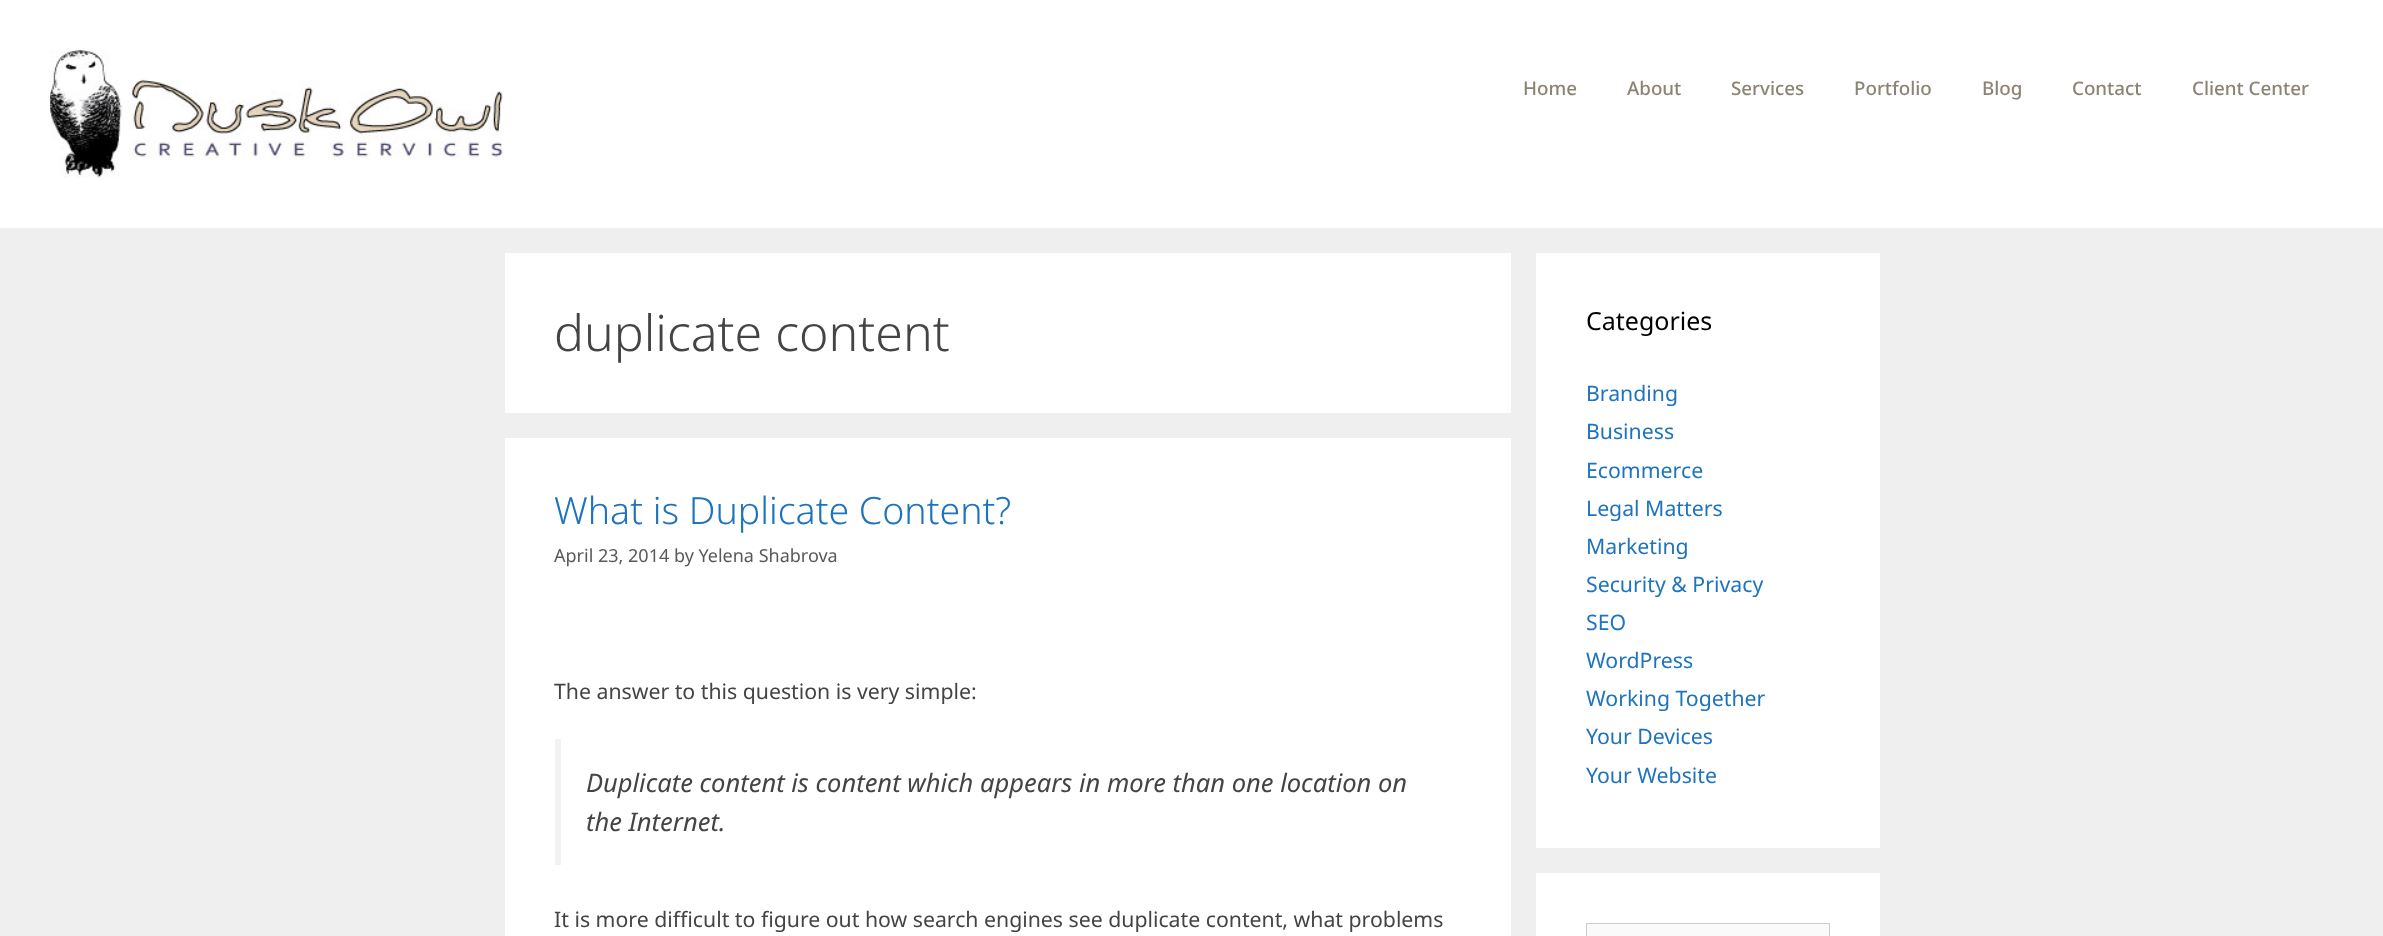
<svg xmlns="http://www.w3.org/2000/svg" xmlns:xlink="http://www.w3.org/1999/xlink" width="2383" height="936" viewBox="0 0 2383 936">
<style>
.cls-1{font:500 18.75px Noto Sans;fill:#8c8374}
.cls-2{font:300 50px Noto Sans;fill:#444444}
.cls-3{font:300 37.5px Noto Sans;fill:#1e73be}
.cls-4{font:18px Noto Sans;fill:#595959}
.cls-5{font:21.25px Noto Sans;fill:#444444}
.cls-6{font:italic 25.5px Noto Sans;fill:#444444}
.cls-7{font:25px Noto Sans;fill:#000000}
.cls-8{font:21.25px Noto Sans;fill:#1e73be}
</style>
<rect width="100%" height="100%" fill="#efefef"/>
<rect fill="#ffffff" x="0" y="0" width="2383" height="228"/>
<image xlink:href="image0.png" x="50" y="50" width="453" height="128"/>
<rect fill="#ffffff" x="505" y="253" width="1006" height="160"/>
<rect fill="#ffffff" x="505" y="438" width="1006" height="498"/>
<rect fill="#f2f2f2" x="555" y="739" width="6" height="126"/>
<rect fill="#ffffff" x="1536" y="253" width="344" height="595"/>
<rect fill="#ffffff" x="1536" y="873" width="344" height="63"/>
<rect fill="#fafafa" stroke="#cccccc" x="1586.5" y="923.5" width="243" height="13"/>
<text class="cls-1" x="1523" y="95">Home</text>
<text class="cls-1" x="1627" y="95">About</text>
<text class="cls-1" x="1731" y="95">Services</text>
<text class="cls-1" x="1854" y="95">Portfolio</text>
<text class="cls-1" x="1982" y="95">Blog</text>
<text class="cls-1" x="2072" y="95">Contact</text>
<text class="cls-1" x="2192" y="95">Client Center</text>
<text class="cls-2" x="554" y="351">duplicate content</text>
<text class="cls-3" x="554" y="524">What is Duplicate Content?</text>
<text class="cls-4" x="554" y="562">April 23, 2014 by Yelena Shabrova</text>
<text class="cls-5" x="554" y="699">The answer to this question is very simple:</text>
<text class="cls-6"><tspan x="586" y="792">Duplicate content is content which appears in more than one location on</tspan><tspan x="586" y="831">the Internet.</tspan></text>
<text class="cls-5" x="554" y="927">It is more difficult to figure out how search engines see duplicate content, what problems</text>
<text class="cls-7" x="1586" y="330">Categories</text>
<text class="cls-8"><tspan x="1586" y="401">Branding</tspan><tspan x="1586" y="439">Business</tspan><tspan x="1586" y="478">Ecommerce</tspan><tspan x="1586" y="516">Legal Matters</tspan><tspan x="1586" y="554">Marketing</tspan><tspan x="1586" y="592">Security &amp; Privacy</tspan><tspan x="1586" y="630">SEO</tspan><tspan x="1586" y="668">WordPress</tspan><tspan x="1586" y="706">Working Together</tspan><tspan x="1586" y="744">Your Devices</tspan><tspan x="1586" y="783">Your Website</tspan></text>
</svg>
